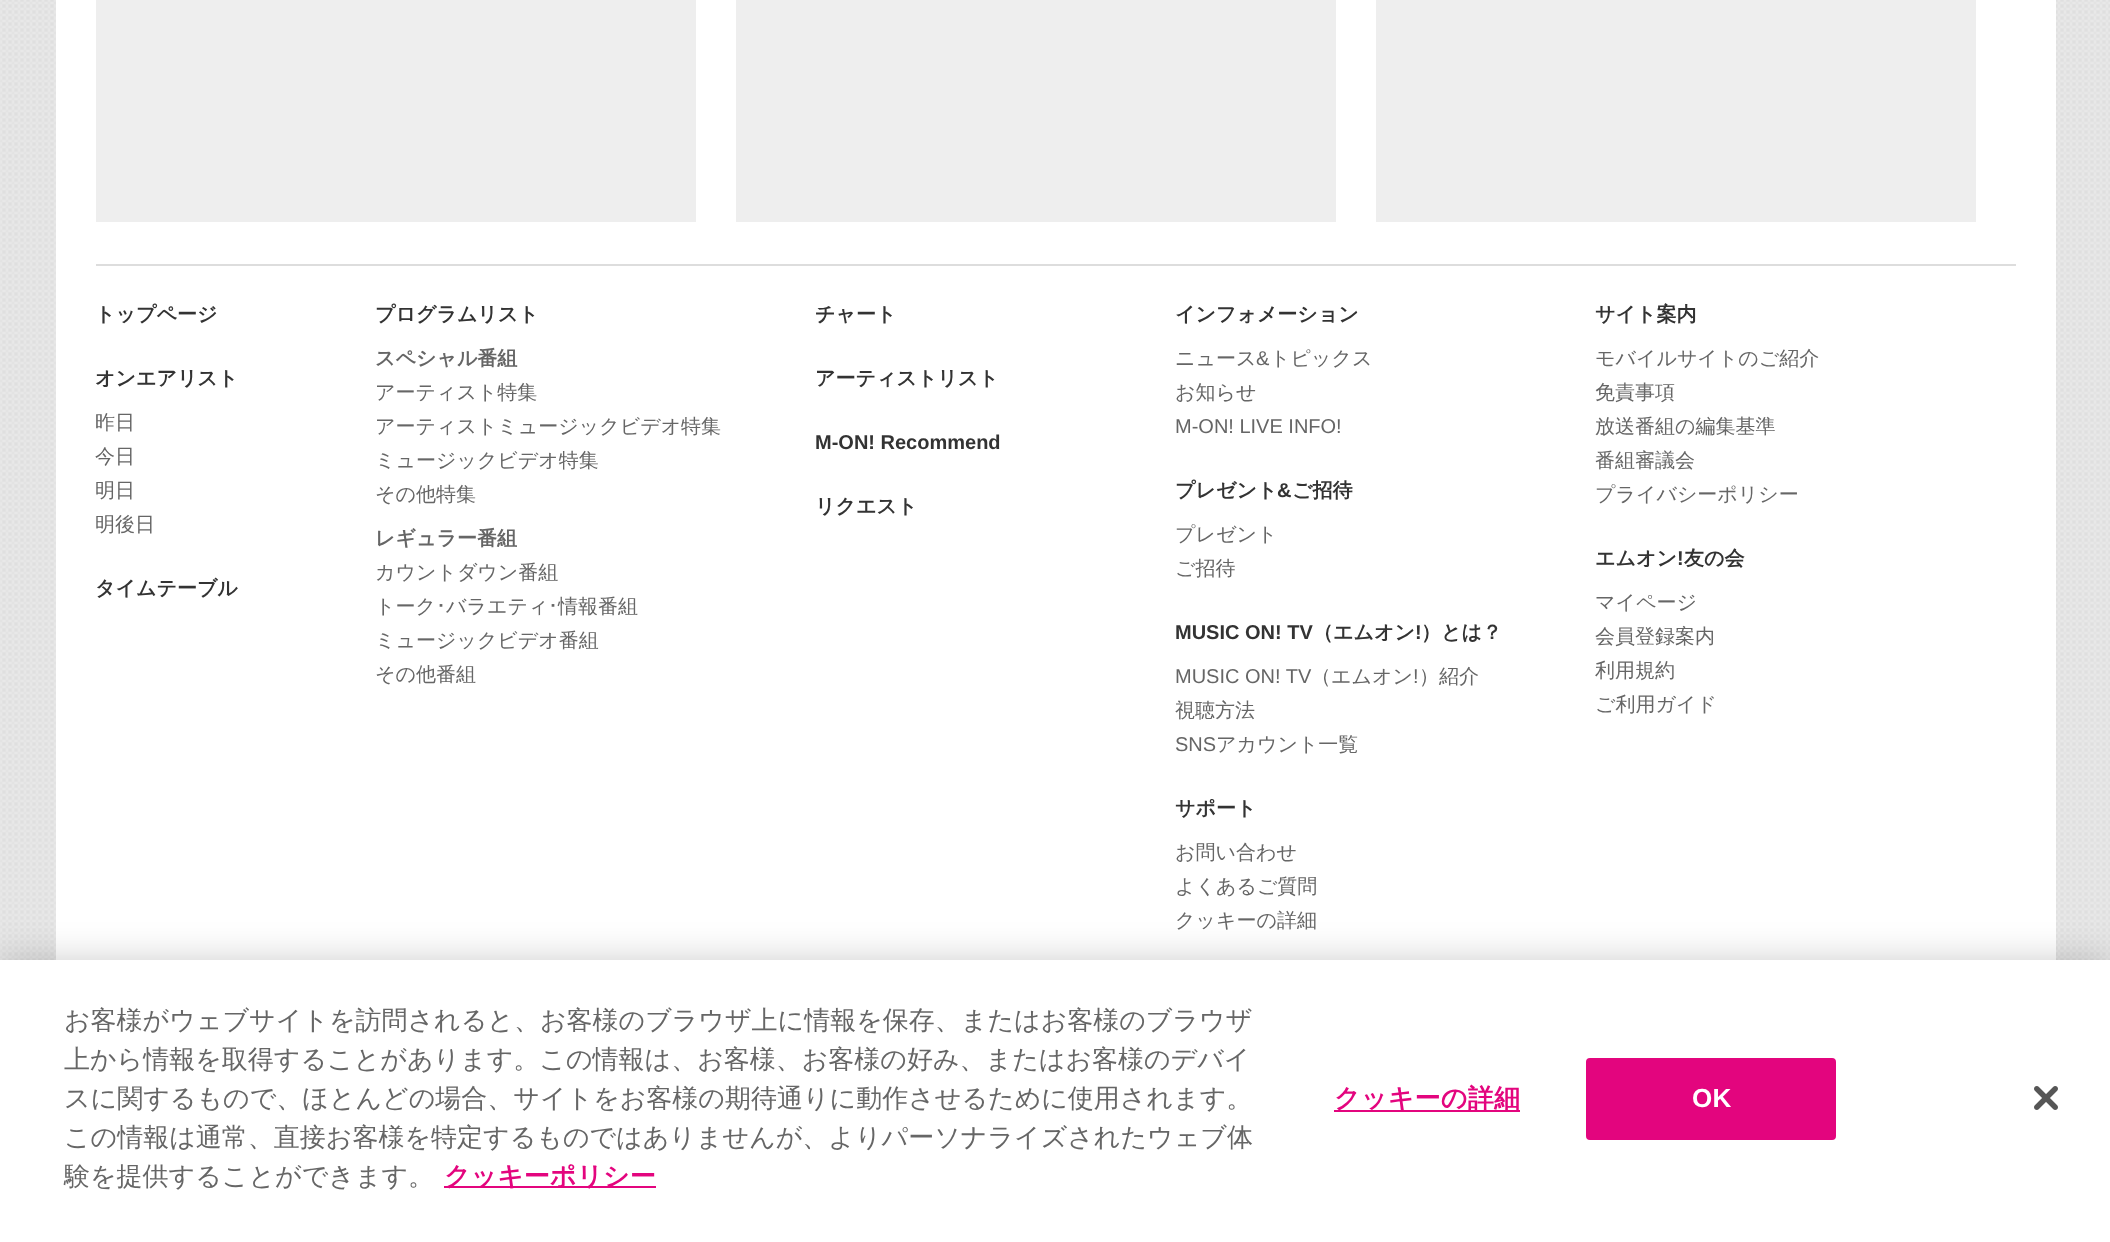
<svg xmlns="http://www.w3.org/2000/svg" xmlns:xlink="http://www.w3.org/1999/xlink" width="2110" height="1242" viewBox="0 0 2110 1242">
<style>
.cls-1{font:bold 20px WenQuanYi Zen Hei;fill:#333333}
.cls-2{font:500 20px WenQuanYi Zen Hei;fill:#666666}
.cls-3{font:bold 20px WenQuanYi Zen Hei;fill:#666666}
.cls-4{font:20px IPAPGothic;fill:#666666}
.cls-5{font:bold 20px Liberation Sans;fill:#333333}
.cls-6{font:20px Liberation Sans;fill:#666666}
.cls-7{font:500 26px WenQuanYi Zen Hei;fill:#666666}
.cls-8{font:bold 26px WenQuanYi Zen Hei;fill:#e3057e}
.cls-9{font:bold 26px WenQuanYi Zen Hei;letter-spacing:0.25px;fill:#e3057e}
.cls-10{font:bold 26px Liberation Sans;letter-spacing:0.25px;fill:#ffffff}
</style>
<rect width="100%" height="100%" fill="#ffffff"/>
<image xlink:href="image0.png" x="0" y="0" width="2110" height="960"/>
<rect fill="#ffffff" x="56" y="0" width="2000" height="960"/>
<rect fill="#eeeeee" x="96" y="0" width="600" height="222"/>
<rect fill="#eeeeee" x="736" y="0" width="600" height="222"/>
<rect fill="#eeeeee" x="1376" y="0" width="600" height="222"/>
<rect fill="#dddddd" x="96" y="264" width="1920" height="2"/>
<rect fill="#000000" fill-opacity="0.2" filter="blur(18px)" x="0" y="960" width="2110" height="282"/>
<rect fill="#ffffff" x="0" y="960" width="2110" height="282"/>
<rect fill="#e3057e" x="444" y="1186" width="212" height="2"/>
<rect fill="#e3057e" x="1334" y="1110" width="186" height="2"/>
<rect fill="#e3057e" stroke="#e3057e" stroke-width="2" x="1587" y="1059" width="248" height="80" rx="3"/>
<image xlink:href="image1.png" x="2034" y="1086" width="24" height="24"/>
<text class="cls-1" x="95" y="321">トップページ</text>
<text class="cls-1" x="95" y="385">オンエアリスト</text>
<text class="cls-2"><tspan x="95" y="429">昨日</tspan><tspan x="95" y="463">今日</tspan><tspan x="95" y="497">明日</tspan><tspan x="95" y="531">明後日</tspan></text>
<text class="cls-1" x="95" y="595">タイムテーブル</text>
<text class="cls-1" x="375" y="321">プログラムリスト</text>
<text class="cls-3" x="375" y="365">スペシャル番組</text>
<text class="cls-2"><tspan x="375" y="399">アーティスト特集</tspan><tspan x="375" y="433">アーティストミュージックビデオ特集</tspan><tspan x="375" y="467">ミュージックビデオ特集</tspan><tspan x="375" y="501">その他特集</tspan></text>
<text class="cls-3" x="375" y="545">レギュラー番組</text>
<text class="cls-2"><tspan x="375" y="579">カウントダウン番組</tspan><tspan x="375" y="613">トーク</tspan></text>
<text class="cls-4" x="436" y="613">･</text>
<text class="cls-2" x="446" y="613">バラエティ</text>
<text class="cls-4" x="548" y="613">･</text>
<text class="cls-2" x="558" y="613">情報番組</text>
<text class="cls-2"><tspan x="375" y="647">ミュージックビデオ番組</tspan><tspan x="375" y="681">その他番組</tspan></text>
<text class="cls-1" x="815" y="321">チャート</text>
<text class="cls-1" x="815" y="385">アーティストリスト</text>
<text class="cls-5" x="815" y="449">M-ON! Recommend</text>
<text class="cls-1" x="815" y="513">リクエスト</text>
<text class="cls-1" x="1175" y="321">インフォメーション</text>
<text class="cls-2" x="1175" y="365">ニュース</text>
<text class="cls-6" x="1256" y="365">&amp;</text>
<text class="cls-2" x="1270" y="365">トピックス</text>
<text class="cls-2" x="1175" y="399">お知らせ</text>
<text class="cls-6" x="1175" y="433">M-ON! LIVE INFO!</text>
<text class="cls-1" x="1175" y="497">プレゼント</text>
<text class="cls-5" x="1277" y="497">&amp;</text>
<text class="cls-1" x="1292" y="497">ご招待</text>
<text class="cls-2"><tspan x="1175" y="541">プレゼント</tspan><tspan x="1175" y="575">ご招待</tspan></text>
<text class="cls-5" x="1175" y="639">MUSIC ON! TV</text>
<text class="cls-1" x="1313" y="639">（エムオン</text>
<text class="cls-5" x="1415" y="639">!</text>
<text class="cls-1" x="1421" y="639">）とは？</text>
<text class="cls-6" x="1175" y="683">MUSIC ON! TV</text>
<text class="cls-2" x="1311" y="683">（エムオン</text>
<text class="cls-6" x="1413" y="683">!</text>
<text class="cls-2" x="1419" y="683">）紹介</text>
<text class="cls-2" x="1175" y="717">視聴方法</text>
<text class="cls-6" x="1175" y="751">SNS</text>
<text class="cls-2" x="1216" y="751">アカウント一覧</text>
<text class="cls-1" x="1175" y="815">サポート</text>
<text class="cls-2"><tspan x="1175" y="859">お問い合わせ</tspan><tspan x="1175" y="893">よくあるご質問</tspan><tspan x="1175" y="927">クッキーの詳細</tspan></text>
<text class="cls-1" x="1595" y="321">サイト案内</text>
<text class="cls-2"><tspan x="1595" y="365">モバイルサイトのご紹介</tspan><tspan x="1595" y="399">免責事項</tspan><tspan x="1595" y="433">放送番組の編集基準</tspan><tspan x="1595" y="467">番組審議会</tspan><tspan x="1595" y="501">プライバシーポリシー</tspan></text>
<text class="cls-1" x="1595" y="565">エムオン</text>
<text class="cls-5" x="1677" y="565">!</text>
<text class="cls-1" x="1684" y="565">友の会</text>
<text class="cls-2"><tspan x="1595" y="609">マイページ</tspan><tspan x="1595" y="643">会員登録案内</tspan><tspan x="1595" y="677">利用規約</tspan><tspan x="1595" y="711">ご利用ガイド</tspan></text>
<text class="cls-7"><tspan x="64" y="1029">お客様がウェブサイトを訪問されると、お客様のブラウザ上に情報を保存、またはお客様のブラウザ</tspan><tspan x="64" y="1068">上から情報を取得することがあります。この情報は、お客様、お客様の好み、またはお客様のデバイ</tspan><tspan x="64" y="1107">スに関するもので、ほとんどの場合、サイトをお客様の期待通りに動作させるために使用されます。</tspan><tspan x="64" y="1146">この情報は通常、直接お客様を特定するものではありませんが、よりパーソナライズされたウェブ体</tspan><tspan x="64" y="1185">験を提供することができます。</tspan></text>
<text class="cls-8" x="444" y="1185">クッキーポリシー</text>
<text class="cls-9" x="1334" y="1107">クッキーの詳細</text>
<text class="cls-10" x="1692" y="1107">OK</text>
</svg>
